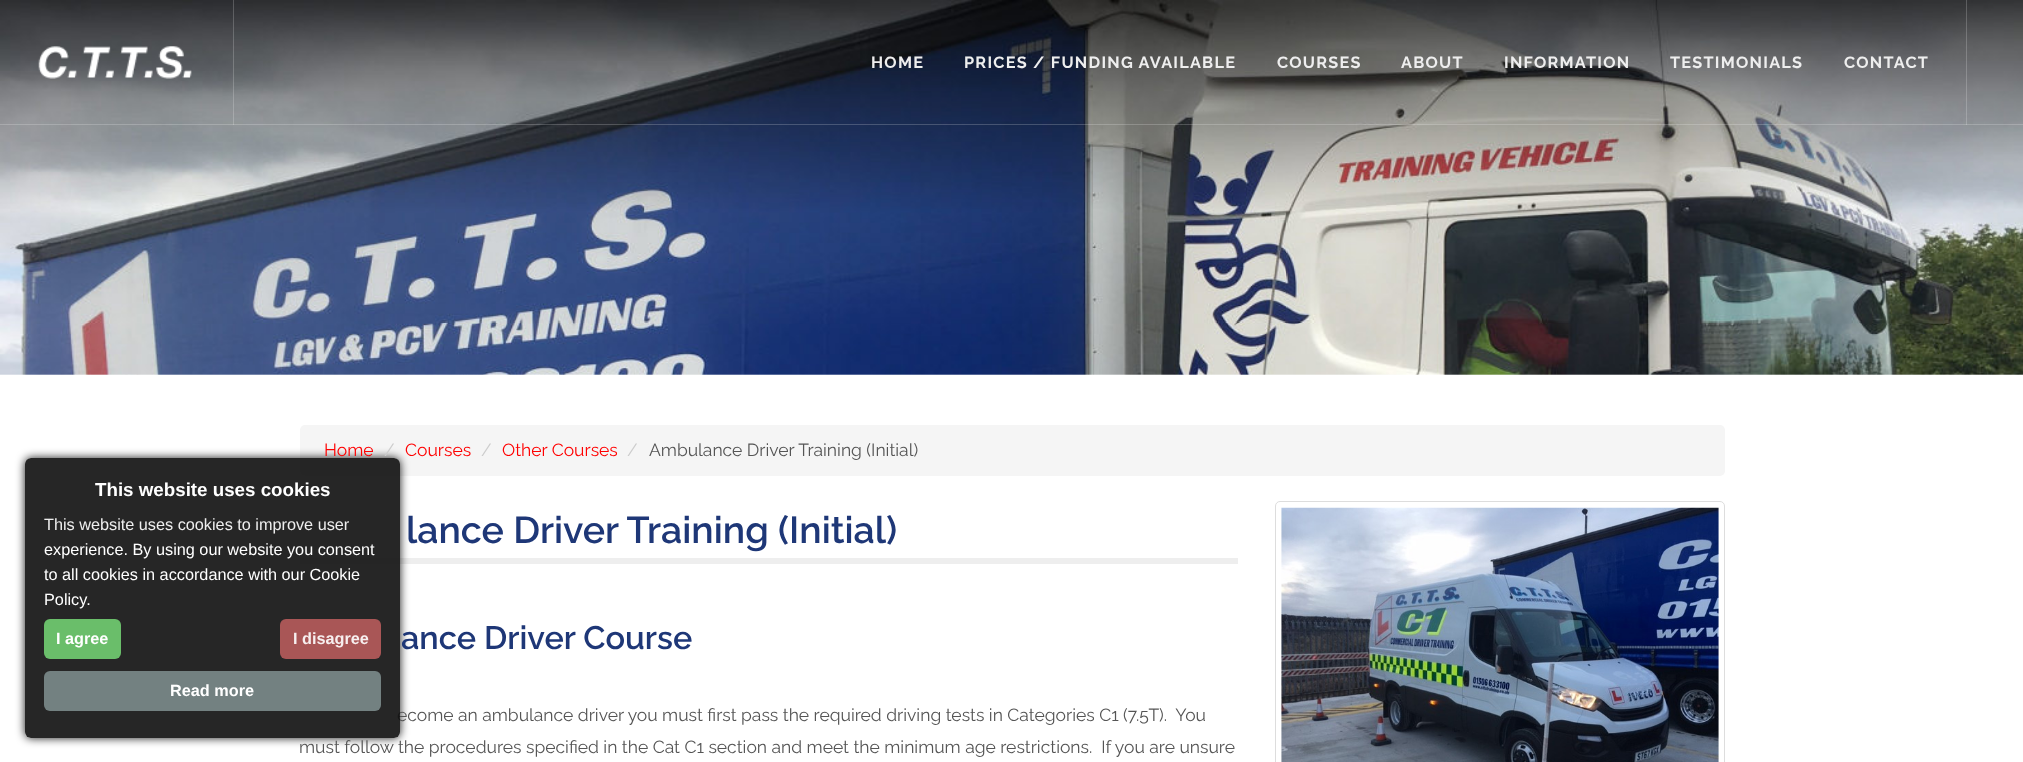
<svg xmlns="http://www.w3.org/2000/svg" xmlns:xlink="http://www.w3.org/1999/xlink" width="2023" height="762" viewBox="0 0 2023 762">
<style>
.cls-1{font:bold 16.25px Raleway;letter-spacing:1.25px;fill:#eeeeee}
.cls-2{font:17.5px Raleway;fill:#ff0000}
.cls-3{font:17.5px Raleway;fill:#cccccc}
.cls-4{font:17.5px Raleway;fill:#555555}
.cls-5{font:600 37.5px Raleway;fill:#1e3777}
.cls-6{font:600 32.5px Raleway;fill:#1e3777}
.cls-7{font:bold 16.25px Liberation Sans;fill:#ffffff}
.cls-8{font:16.25px Liberation Sans;fill:#ffffff}
.cls-9{font:16.25px Liberation Sans;fill:#eeeeee}
.cls-10{font:bold 18.75px Liberation Sans;fill:#ffffff}
.cls-11{font:bold 16.25px Liberation Sans;fill:#f7efef}
</style>
<defs>
<clipPath id="clip1"><path d="M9 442H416V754H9ZM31 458H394C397.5 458 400 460.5 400 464V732C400 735.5 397.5 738 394 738H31C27.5 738 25 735.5 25 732V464C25 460.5 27.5 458 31 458Z" clip-rule="evenodd"/></clipPath>
</defs>
<rect width="100%" height="100%" fill="#ffffff"/>
<rect fill="#f5f5f5" x="300" y="425" width="1425" height="51" rx="5"/>
<rect fill="#eeeeee" x="300" y="558" width="938" height="6"/>
<g clip-path="url(#clip1)">
<rect fill="#000000" fill-opacity="0.91" filter="blur(5px)" x="25" y="458" width="375" height="280" rx="6"/>
</g>
<image xlink:href="image0.png" x="0" y="0" width="2023" height="375"/>
<rect fill="#ffffff" fill-opacity="0.2" x="0" y="124" width="2023" height="1"/>
<rect fill="#ffffff" fill-opacity="0.2" x="233" y="0" width="1" height="125"/>
<image xlink:href="image1.png" x="38" y="46" width="154" height="33"/>
<rect fill="#ffffff" fill-opacity="0.2" x="1966" y="0" width="1" height="125"/>
<rect fill="none" stroke="#dddddd" x="1275.5" y="501.5" width="449" height="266" rx="4.5"/>
<image xlink:href="image2.png" x="1281" y="507" width="438" height="255"/>
<text class="cls-1" x="871" y="68">HOME</text>
<text class="cls-1" x="964" y="68">PRICES / FUNDING AVAILABLE</text>
<text class="cls-1" x="1277" y="68">COURSES</text>
<text class="cls-1" x="1401" y="68">ABOUT</text>
<text class="cls-1" x="1504" y="68">INFORMATION</text>
<text class="cls-1" x="1670" y="68">TESTIMONIALS</text>
<text class="cls-1" x="1844" y="68">CONTACT</text>
<text class="cls-2" x="324" y="456">Home</text>
<text class="cls-3" x="384" y="456">/</text>
<text class="cls-2" x="405" y="456">Courses</text>
<text class="cls-3" x="481" y="456">/</text>
<text class="cls-2" x="502" y="456">Other Courses</text>
<text class="cls-3" x="627" y="456">/</text>
<text class="cls-4" x="649" y="456">Ambulance Driver Training (Initial)</text>
<text class="cls-5" x="406" y="543">lance Driver Training (Initial)</text>
<text class="cls-6" x="401" y="649">ance Driver Course</text>
<text class="cls-4" xml:space="preserve" x="397" y="721">ecome an ambulance driver you must first pass the required driving tests in Categories C1 (7.5T).  You</text>
<rect fill="#111111" fill-opacity="0.91" x="25" y="458" width="375" height="280" rx="6"/>
<rect fill="#7b8a8b" fill-opacity="0.91" x="44" y="671" width="337" height="40" rx="6"/>
<text class="cls-7" x="170" y="696">Read more</text>
<rect fill="#6abe6a" x="44" y="619" width="77" height="40" rx="6"/>
<text class="cls-7" x="56" y="644">I agree</text>
<text class="cls-8" x="44" y="605">Policy.</text>
<text class="cls-8" x="44" y="580">to all cookies in accordance with our Cookie</text>
<text class="cls-8" x="44" y="555">experience. By using our website you consent</text>
<text class="cls-9" x="44" y="530">This website uses cookies to improve user</text>
<text class="cls-10" x="95" y="496">This website uses cookies</text>
<rect fill="#b75b5b" fill-opacity="0.91" x="280" y="619" width="101" height="40" rx="6"/>
<text class="cls-11" x="293" y="644">I disagree</text>
<text class="cls-4" xml:space="preserve" x="299" y="753">must follow the procedures specified in the Cat C1 section and meet the minimum age restrictions.  If you are unsure</text>
</svg>
